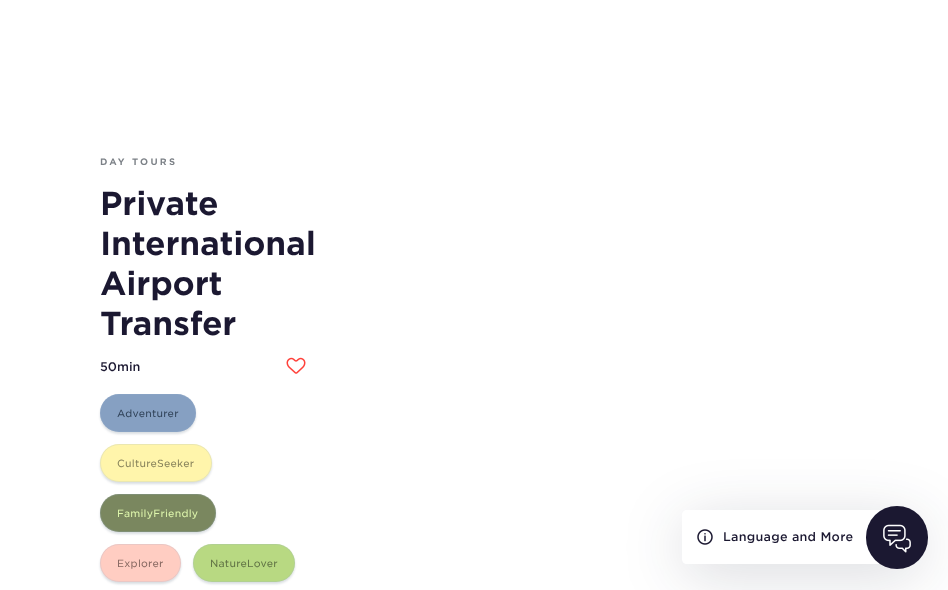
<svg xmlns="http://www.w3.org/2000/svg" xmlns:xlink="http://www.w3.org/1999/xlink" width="948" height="590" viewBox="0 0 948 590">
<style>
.cls-1{font:bold 9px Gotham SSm;letter-spacing:2.25px;fill:#7c8187}
.cls-2{font:bold 32px Gotham SSm;letter-spacing:-0.25px;fill:#1b1831}
.cls-3{font:500 12px Gotham SSm;fill:#1b1831}
.cls-4{font:10px Gotham SSm;letter-spacing:0.25px;fill:#314359}
.cls-5{font:10px Gotham SSm;letter-spacing:0.25px;fill:#87825b}
.cls-6{font:10px Gotham SSm;letter-spacing:0.25px;fill:#dff7ad}
.cls-7{font:10px Gotham SSm;letter-spacing:0.25px;fill:#876861}
.cls-8{font:10px Gotham SSm;letter-spacing:0.25px;fill:#617345}
.cls-9{font:500 12px Gotham SSm;letter-spacing:0.25px;fill:#1b1831}
</style>
<rect width="100%" height="100%" fill="#ffffff"/>
<image xlink:href="image0.png" x="286" y="357" width="20" height="17"/>
<rect fill="#001f3e" fill-opacity="0.15" filter="blur(1px)" x="100" y="396" width="96" height="38" rx="19"/>
<rect fill="#86a0c2" x="100" y="394" width="96" height="38" rx="19"/>
<rect fill="none" stroke="#97b0ce" stroke-opacity="0.2" x="100.5" y="394.5" width="95" height="37" rx="18.5"/>
<rect fill="#001f3e" fill-opacity="0.15" filter="blur(1px)" x="100" y="446" width="112" height="38" rx="19"/>
<rect fill="#fff5ab" x="100" y="444" width="112" height="38" rx="19"/>
<rect fill="none" stroke="#97b0ce" stroke-opacity="0.2" x="100.5" y="444.5" width="111" height="37" rx="18.5"/>
<rect fill="#001f3e" fill-opacity="0.15" filter="blur(1px)" x="100" y="496" width="116" height="38" rx="19"/>
<rect fill="#7a875f" x="100" y="494" width="116" height="38" rx="19"/>
<rect fill="none" stroke="#97b0ce" stroke-opacity="0.2" x="100.5" y="494.5" width="115" height="37" rx="18.5"/>
<rect fill="#001f3e" fill-opacity="0.15" filter="blur(1px)" x="100" y="546" width="81" height="38" rx="19"/>
<rect fill="#ffcdc2" x="100" y="544" width="81" height="38" rx="19"/>
<rect fill="none" stroke="#97b0ce" stroke-opacity="0.2" x="100.5" y="544.5" width="80" height="37" rx="18.5"/>
<rect fill="#001f3e" fill-opacity="0.15" filter="blur(1px)" x="193" y="546" width="102" height="38" rx="19"/>
<rect fill="#b8d982" x="193" y="544" width="102" height="38" rx="19"/>
<rect fill="none" stroke="#97b0ce" stroke-opacity="0.2" x="193.5" y="544.5" width="101" height="37" rx="18.5"/>
<rect fill="#151c33" fill-opacity="0.17" filter="blur(30px)" x="679" y="520" width="246" height="54" rx="27"/>
<path fill="#ffffff" d="M687 510H901C916 510 928 522 928 537C928 552 916 564 901 564H687C684 564 682 562 682 559V515C682 512 684 510 687 510Z"/>
<image xlink:href="image1.png" x="697" y="529" width="16" height="16"/>
<rect fill="#1b1831" x="866" y="506" width="62" height="63" rx="31"/>
<image xlink:href="image2.png" x="883" y="524" width="28" height="29"/>
<text class="cls-1" x="100" y="165">DAY TOURS</text>
<text class="cls-2"><tspan x="100" y="215">Private</tspan><tspan x="100" y="255">International</tspan><tspan x="100" y="295">Airport</tspan><tspan x="100" y="335">Transfer</tspan></text>
<text class="cls-3" x="100" y="371">50min</text>
<text class="cls-4" x="117" y="417">Adventurer</text>
<text class="cls-5" x="117" y="467">CultureSeeker</text>
<text class="cls-6" x="117" y="517">FamilyFriendly</text>
<text class="cls-7" x="117" y="567">Explorer</text>
<text class="cls-8" x="210" y="567">NatureLover</text>
<text class="cls-9" x="723" y="541">Language and More</text>
</svg>
